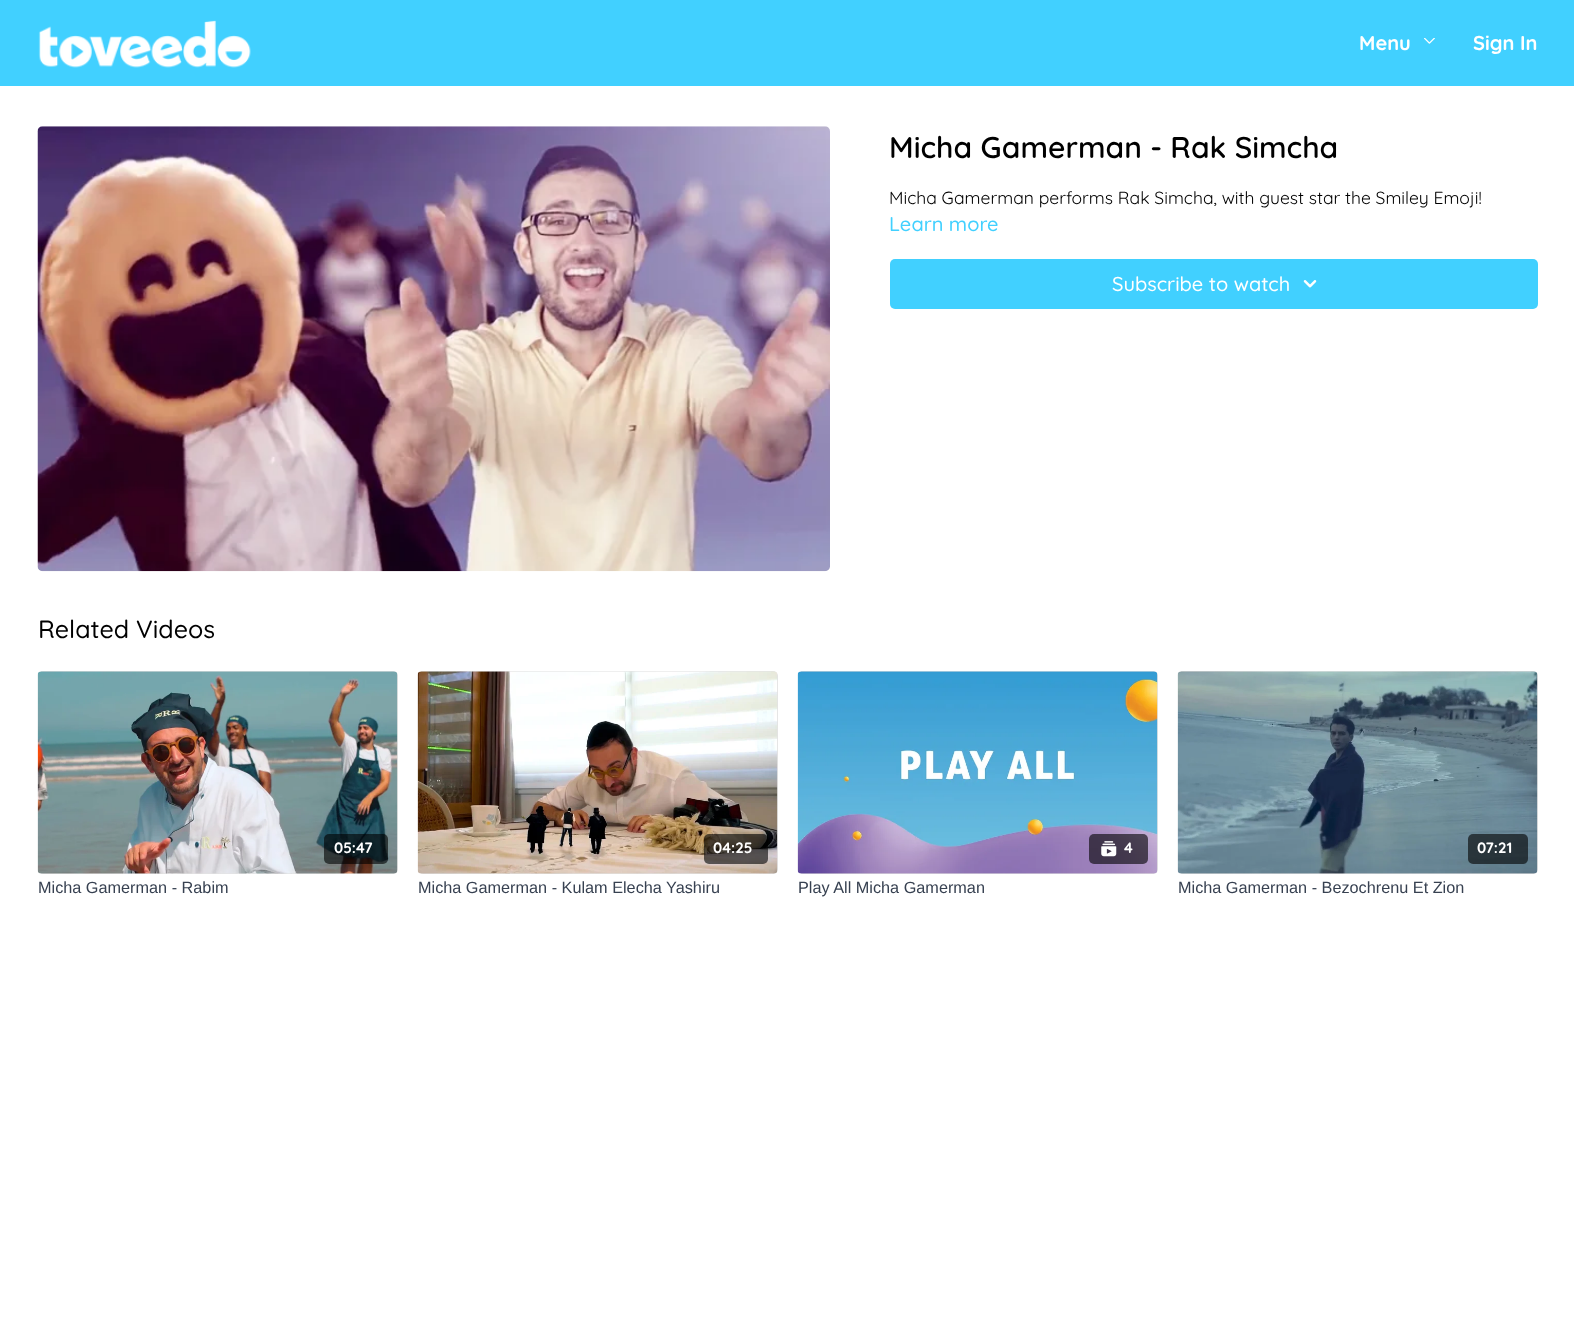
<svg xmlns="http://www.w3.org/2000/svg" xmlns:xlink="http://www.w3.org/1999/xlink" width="1574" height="1322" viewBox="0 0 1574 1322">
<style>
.cls-1{font:bold 20px Quicksand;fill:#ffffff}
.cls-2{font:600 30px Quicksand;fill:#000000}
.cls-3{font:17.5px Quicksand;fill:#000000}
.cls-4{font:500 20px Quicksand;fill:#41d0ff}
.cls-5{font:500 20px Quicksand;fill:#ffffff}
.cls-6{font:500 25px Quicksand;fill:#000000}
.cls-7{font:bold 15px Quicksand;fill:#ffffff}
.cls-8{font:16.25px Liberation Sans;fill:#374151}
</style>
<defs>
<linearGradient id="g1" gradientUnits="userSpaceOnUse" x1="38" y1="773" x2="398" y2="773"><stop offset="0.08" stop-color="#dedede"/><stop offset="0.18" stop-color="#e0e0e0"/><stop offset="0.33" stop-color="#e3e3e3"/></linearGradient>
<linearGradient id="g2" gradientUnits="userSpaceOnUse" x1="418" y1="773" x2="778" y2="773"><stop offset="0.08" stop-color="#dedede"/><stop offset="0.18" stop-color="#e0e0e0"/><stop offset="0.33" stop-color="#e3e3e3"/></linearGradient>
<linearGradient id="g3" gradientUnits="userSpaceOnUse" x1="798" y1="773" x2="1158" y2="773"><stop offset="0.08" stop-color="#dedede"/><stop offset="0.18" stop-color="#e0e0e0"/><stop offset="0.33" stop-color="#e3e3e3"/></linearGradient>
<linearGradient id="g4" gradientUnits="userSpaceOnUse" x1="1178" y1="773" x2="1538" y2="773"><stop offset="0.08" stop-color="#dedede"/><stop offset="0.18" stop-color="#e0e0e0"/><stop offset="0.33" stop-color="#e3e3e3"/></linearGradient>
</defs>
<rect width="100%" height="100%" fill="#ffffff"/>
<rect fill="#41d0ff" x="0" y="0" width="1574" height="86"/>
<image xlink:href="image0.png" x="38" y="20" width="213" height="48"/>
<image xlink:href="image1.png" x="1424" y="38" width="11" height="6"/>
<image xlink:href="image2.png" x="37" y="126" width="793" height="446"/>
<rect fill="#41d0ff" x="890" y="259" width="648" height="50" rx="5"/>
<image xlink:href="image3.png" x="1303" y="280" width="14" height="8"/>
<rect fill="url(#g1)" x="38" y="671" width="360" height="203" rx="5"/>
<image xlink:href="image4.png" x="37" y="671" width="361" height="203"/>
<rect fill="#000000" fill-opacity="0.6" x="324" y="834" width="64" height="30" rx="5"/>
<rect fill="url(#g2)" x="418" y="671" width="360" height="203" rx="5"/>
<image xlink:href="image5.png" x="417" y="671" width="361" height="203"/>
<rect fill="#000000" fill-opacity="0.6" x="704" y="834" width="64" height="30" rx="5"/>
<rect fill="url(#g3)" x="798" y="671" width="360" height="203" rx="5"/>
<image xlink:href="image6.png" x="797" y="671" width="361" height="203"/>
<rect fill="#000000" fill-opacity="0.6" x="1089" y="834" width="59" height="30" rx="5"/>
<image xlink:href="image7.png" x="1101" y="841" width="16" height="16"/>
<rect fill="url(#g4)" x="1178" y="671" width="360" height="203" rx="5"/>
<image xlink:href="image8.png" x="1177" y="671" width="361" height="203"/>
<rect fill="#000000" fill-opacity="0.6" x="1468" y="834" width="60" height="30" rx="5"/>
<text class="cls-1" x="1359" y="50">Menu</text>
<text class="cls-1" x="1473" y="50">Sign In</text>
<text class="cls-2" x="889" y="158">Micha Gamerman - Rak Simcha</text>
<text class="cls-3" x="889" y="204">Micha Gamerman performs Rak Simcha, with guest star the Smiley Emoji!</text>
<text class="cls-4" x="889" y="231">Learn more</text>
<text class="cls-5" x="1112" y="291">Subscribe to watch</text>
<text class="cls-6" x="38" y="638">Related Videos</text>
<text class="cls-7" x="334" y="853">05:47</text>
<text class="cls-8" x="38" y="893">Micha Gamerman - Rabim</text>
<text class="cls-7" x="713" y="853">04:25</text>
<text class="cls-8" x="418" y="893">Micha Gamerman - Kulam Elecha Yashiru</text>
<text class="cls-7" x="1124" y="853">4</text>
<text class="cls-8" x="798" y="893">Play All Micha Gamerman</text>
<text class="cls-7" x="1477" y="853">07:21</text>
<text class="cls-8" x="1178" y="893">Micha Gamerman - Bezochrenu Et Zion</text>
</svg>
